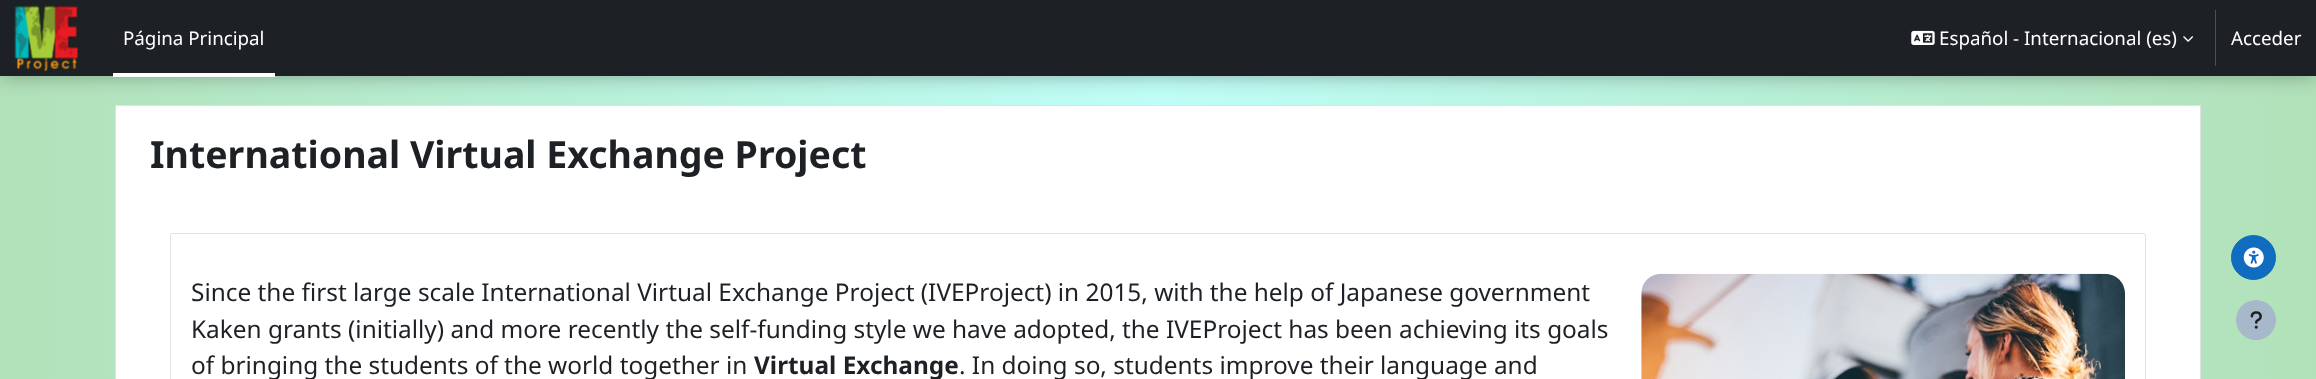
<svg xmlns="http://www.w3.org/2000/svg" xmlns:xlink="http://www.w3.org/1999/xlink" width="2316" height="379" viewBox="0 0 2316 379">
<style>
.cls-1{font:18.75px Noto Sans;fill:#ffffff}
.cls-2{font:bold 37.5px Noto Sans;fill:#1d2125}
.cls-3{font:24.38px Noto Sans;fill:#1d2125}
.cls-4{font:bold 24.38px Noto Sans;fill:#1d2125}
</style>
<defs>
<linearGradient id="g1" gradientUnits="userSpaceOnUse" x1="0" y1="190" x2="2316" y2="190"><stop offset="0" stop-color="#b1e1b8"/><stop offset="0.5" stop-color="#bffdf7"/><stop offset="1" stop-color="#b1e1b8"/></linearGradient>
</defs>
<rect width="100%" height="100%" fill="#ffffff"/>
<rect fill="url(#g1)" x="0" y="76" width="2316" height="303"/>
<rect fill="#ffffff" stroke="#dee2e6" x="115.5" y="105.5" width="2085" height="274"/>
<rect fill="#000000" fill-opacity="0.3" filter="blur(9.5px)" x="0" y="0" width="2316" height="76"/>
<rect fill="#1d2125" x="0" y="0" width="2316" height="76"/>
<image xlink:href="image0.png" x="14" y="5" width="64" height="67"/>
<rect fill="#ffffff" x="113" y="73" width="162" height="4"/>
<image xlink:href="image1.png" x="1911" y="30" width="24" height="15"/>
<image xlink:href="image2.png" x="2183" y="36" width="10" height="6"/>
<rect fill="#495057" x="2215" y="10" width="1" height="56"/>
<circle fill="#0f6cbf" stroke="#0f6cbf" cx="2253.5" cy="257.5" r="22"/>
<image xlink:href="image3.png" x="2243" y="247" width="21" height="21"/>
<rect fill="none" stroke="#dee2e6" x="170.5" y="233.5" width="1975" height="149" rx="2"/>
<image xlink:href="image4.png" x="1641" y="273" width="484" height="106"/>
<circle fill="#a6b8c9" cx="2256" cy="320" r="20"/>
<image xlink:href="image5.png" x="2250" y="311" width="12" height="18"/>
<text class="cls-1" x="123" y="45">Página Principal</text>
<text class="cls-1" x="1939" y="45">Español - Internacional (es)</text>
<text class="cls-1" x="2231" y="45">Acceder</text>
<text class="cls-2" x="150" y="168">International Virtual Exchange Project</text>
<text class="cls-3"><tspan x="191" y="301">Since the first large scale International Virtual Exchange Project (IVEProject) in 2015, with the help of Japanese government</tspan><tspan x="191" y="338">Kaken grants (initially) and more recently the self-funding style we have adopted, the IVEProject has been achieving its goals</tspan><tspan x="191" y="374">of bringing the students of the world together in</tspan></text>
<text class="cls-4" x="754" y="374">Virtual Exchange</text>
<text class="cls-3" x="959" y="374">. In doing so, students improve their language and</text>
</svg>
